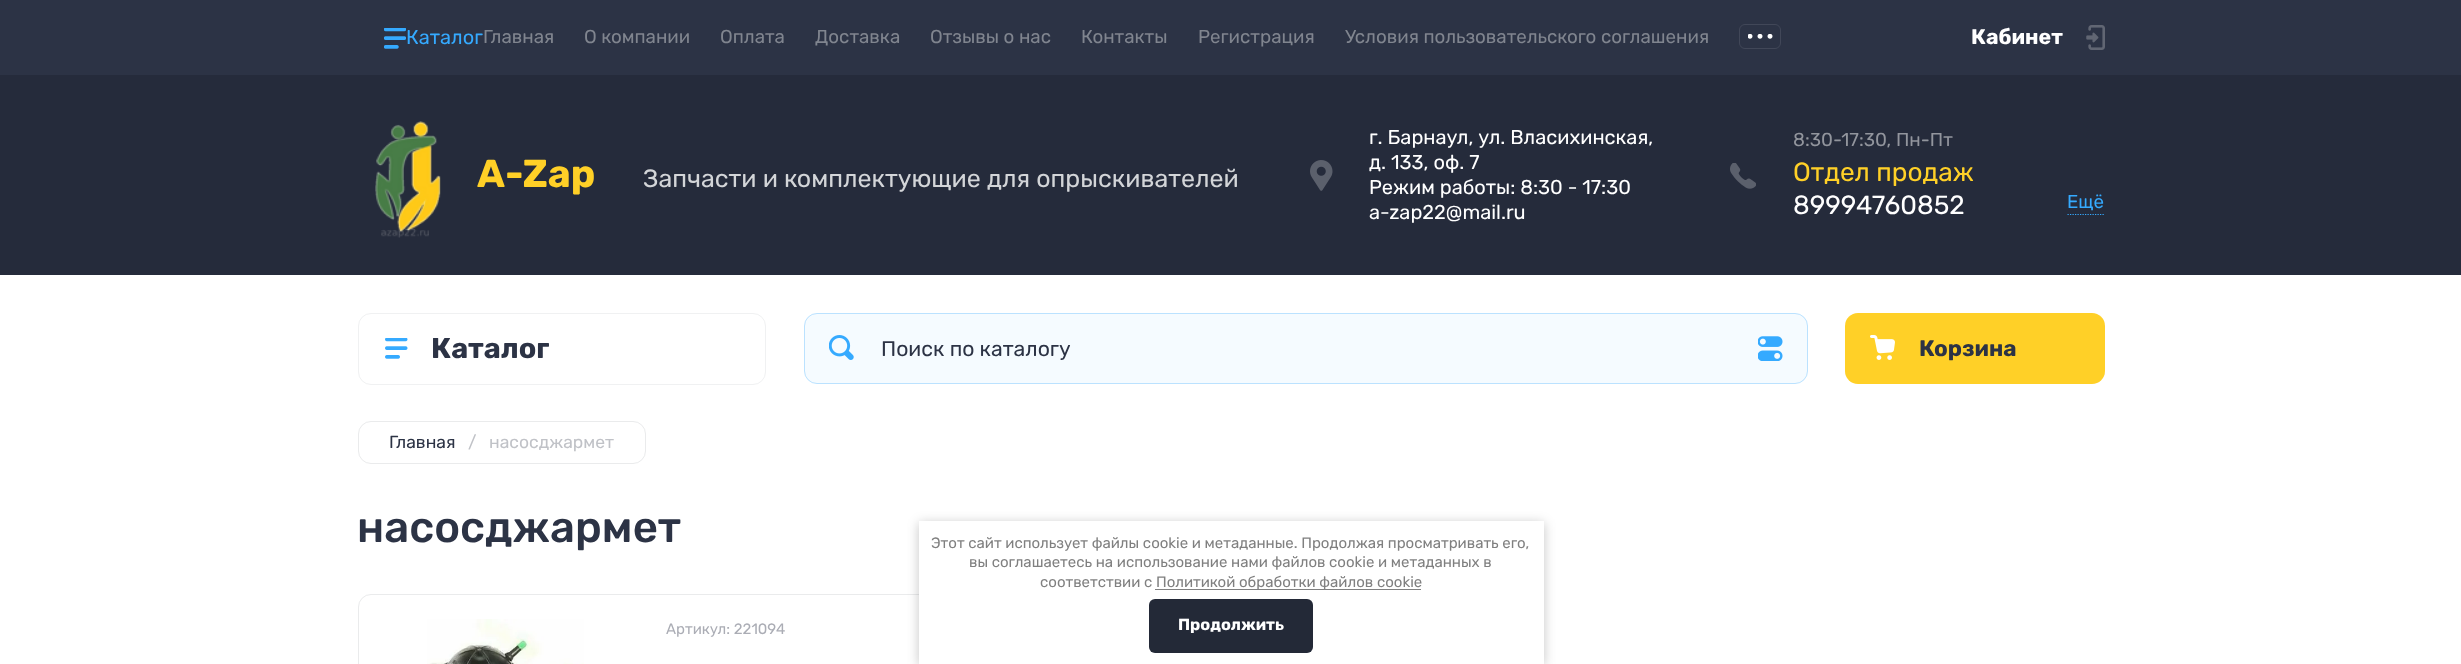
<svg xmlns="http://www.w3.org/2000/svg" xmlns:xlink="http://www.w3.org/1999/xlink" width="2461" height="664" viewBox="0 0 2461 664">
<style>
.cls-1{font:20px Rubik;fill:#35aaff}
.cls-2{font:18.75px Rubik;fill:#80858f}
.cls-3{font:bold 21.25px Rubik;fill:#ffffff}
.cls-4{font:bold 39px Rubik;fill:#ffd027}
.cls-5{font:25px Rubik;fill:#d3d5d8}
.cls-6{font:20px Rubik;fill:#ffffff}
.cls-7{font:18.75px Rubik;fill:#92959d}
.cls-8{font:26.25px Rubik;fill:#ffd027}
.cls-9{font:26.25px Rubik;fill:#ffffff}
.cls-10{font:18.75px Rubik;fill:#35aaff}
.cls-11{font:bold 28.75px Rubik;fill:#2c3345}
.cls-12{font:21.25px Rubik;fill:#2c3345}
.cls-13{font:bold 22.5px Rubik;fill:#2c3345}
.cls-14{font:17.5px Rubik;fill:#2c3345}
.cls-15{font:17.5px Rubik;fill:#c0c2c7}
.cls-16{font:500 43.75px Rubik;fill:#2c3345}
.cls-17{font:15px Rubik;fill:#abadb5}
.cls-18{font:15px Rubik;fill:#808080}
.cls-19{font:bold 16.25px Rubik;fill:#ffffff}
</style>
<rect width="100%" height="100%" fill="#ffffff"/>
<rect fill="#2c3345" x="0" y="0" width="2461" height="75"/>
<image xlink:href="image0.png" x="384" y="28" width="22" height="21"/>
<image xlink:href="image1.png" x="1748" y="34" width="25" height="5"/>
<rect fill="none" stroke="#414758" x="1739.5" y="24.5" width="41" height="24" rx="5.5"/>
<image xlink:href="image2.png" x="2086" y="25" width="19" height="25"/>
<rect fill="#252b3b" x="0" y="75" width="2461" height="200"/>
<image xlink:href="image3.png" x="375" y="121" width="66" height="117"/>
<image xlink:href="image4.png" x="1310" y="160" width="23" height="31"/>
<image xlink:href="image5.png" x="1730" y="163" width="26" height="26"/>
<path fill="none" stroke="#35aaff" stroke-width="1.2" stroke-dasharray="1.25 1.25" d="M2067.5 214.5H2105"/>
<rect fill="none" stroke="#f0f1f2" x="358.5" y="313.5" width="407" height="71" rx="12.5"/>
<image xlink:href="image6.png" x="385" y="338" width="23" height="21"/>
<rect fill="#f5fbff" x="804" y="313" width="1004" height="71" rx="13"/>
<rect fill="none" stroke="#35aaff" stroke-opacity="0.3" x="804.5" y="313.5" width="1003" height="70" rx="12.5"/>
<image xlink:href="image7.png" x="829" y="335" width="25" height="25"/>
<image xlink:href="image8.png" x="1758" y="336" width="25" height="25"/>
<rect fill="#ffd027" x="1845" y="313" width="260" height="71" rx="13"/>
<image xlink:href="image9.png" x="1870" y="335" width="25" height="25"/>
<rect fill="none" stroke="#eaebec" x="358.5" y="421.5" width="287" height="42" rx="12.5"/>
<rect fill="none" stroke="#eaebec" x="358.5" y="594.5" width="854" height="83" rx="12.5"/>
<image xlink:href="image10.png" x="427" y="619" width="157" height="45"/>
<rect fill="#000000" fill-opacity="0.23" filter="blur(6px)" x="919" y="523" width="625" height="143"/>
<rect fill="#ffffff" x="919" y="521" width="625" height="143"/>
<rect fill="#808080" x="1155" y="589" width="266" height="1"/>
<rect fill="#232937" x="1149" y="599" width="164" height="54" rx="6"/>
<text class="cls-1" x="406" y="44">Каталог</text>
<text class="cls-2" x="483" y="43">Главная</text>
<text class="cls-2" x="584" y="43">О компании</text>
<text class="cls-2" x="720" y="43">Оплата</text>
<text class="cls-2" x="815" y="43">Доставка</text>
<text class="cls-2" x="930" y="43">Отзывы о нас</text>
<text class="cls-2" x="1081" y="43">Контакты</text>
<text class="cls-2" x="1198" y="43">Регистрация</text>
<text class="cls-2" x="1345" y="43">Условия пользовательского соглашения</text>
<text class="cls-3" x="1971" y="44">Кабинет</text>
<text class="cls-4" x="477" y="187">A-Zap</text>
<text class="cls-5" x="643" y="187">Запчасти и комплектующие для опрыскивателей</text>
<text class="cls-6"><tspan x="1369" y="144">г. Барнаул, ул. Власихинская,</tspan><tspan x="1369" y="169">д. 133, оф. 7</tspan><tspan x="1369" y="194">Режим работы: 8:30 - 17:30</tspan><tspan x="1369" y="219">a-zap22@mail.ru</tspan></text>
<text class="cls-7" x="1793" y="146">8:30-17:30, Пн-Пт</text>
<text class="cls-8" x="1793" y="181">Отдел продаж</text>
<text class="cls-9" x="1793" y="214">89994760852</text>
<text class="cls-10" x="2067" y="208">Ещё</text>
<text class="cls-11" x="431" y="358">Каталог</text>
<text class="cls-12" x="881" y="356">Поиск по каталогу</text>
<text class="cls-13" x="1919" y="356">Корзина</text>
<text class="cls-14" x="389" y="448">Главная</text>
<text class="cls-15" x="468" y="448">/</text>
<text class="cls-15" x="489" y="448">насосджармет</text>
<text class="cls-16" x="357" y="542">насосджармет</text>
<text class="cls-17" x="666" y="634">Артикул: 221094</text>
<text class="cls-18" x="931" y="548">Этот сайт использует файлы cookie и метаданные. Продолжая просматривать его,</text>
<text class="cls-18" x="969" y="567">вы соглашаетесь на использование нами файлов cookie и метаданных в</text>
<text class="cls-18" x="1040" y="587">соответствии с</text>
<text class="cls-18" x="1156" y="587">Политикой обработки файлов cookie</text>
<text class="cls-19" x="1178" y="630">Продолжить</text>
</svg>
